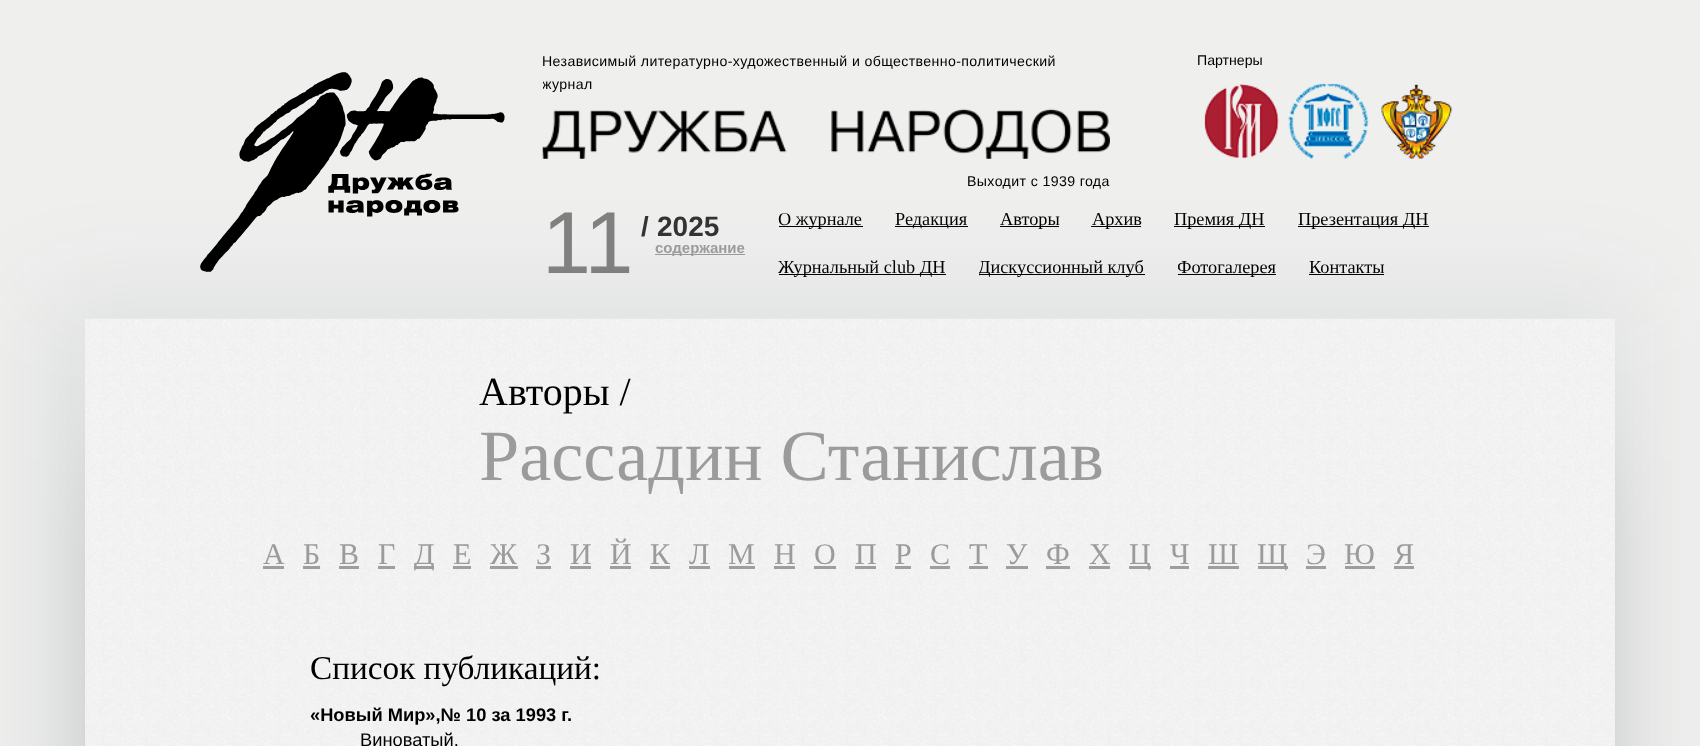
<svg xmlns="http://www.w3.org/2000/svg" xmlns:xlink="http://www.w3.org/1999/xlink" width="1700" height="746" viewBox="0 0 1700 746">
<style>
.cls-1{font:14.15px Liberation Sans;letter-spacing:0.38px;fill:#000000}
.cls-2{font:14.15px Liberation Sans;fill:#000000}
.cls-3{font:88px Liberation Sans;fill:#808080}
.cls-4{font:bold 28px Liberation Sans;fill:#333333}
.cls-5{font:bold 15px Liberation Sans;fill:#9b9b9b}
.cls-6{font:18.3px Liberation Serif;fill:#000000}
.cls-7{font:40px Liberation Serif;fill:#000000}
.cls-8{font:72.25px Liberation Serif;fill:#9b9b9b}
.cls-9{font:30px Liberation Serif;fill:#9b9b9b}
.cls-10{font:33.25px Liberation Serif;fill:#000000}
.cls-11{font:bold 18.3px Liberation Sans;fill:#000000}
.cls-12{font:18.3px Liberation Sans;fill:#000000}
</style>
<defs>
<clipPath id="clip1"><rect x="543" y="50" width="567" height="143"/></clipPath>
<clipPath id="clip2"><rect x="634" y="216" width="129" height="22"/></clipPath>
<clipPath id="clip3"><rect x="979" y="256" width="166" height="25"/></clipPath>
<clipPath id="clip4"><rect x="1178" y="256" width="98" height="25"/></clipPath>
</defs>
<rect width="100%" height="100%" fill="#efefee"/>
<image xlink:href="image0.png" x="542" y="108" width="568" height="51"/>
<image xlink:href="image1.png" x="1204" y="84" width="75" height="75"/>
<image xlink:href="image2.png" x="1288" y="83" width="81" height="76"/>
<image xlink:href="image3.png" x="1381" y="84" width="72" height="75"/>
<image xlink:href="image4.png" x="200" y="72" width="305" height="200"/>
<rect fill="#9b9b9b" x="655" y="254" width="90" height="1"/>
<rect fill="#000000" x="779" y="226" width="84" height="1"/>
<rect fill="#000000" x="895" y="226" width="73" height="1"/>
<rect fill="#000000" x="1000" y="226" width="59" height="1"/>
<rect fill="#000000" x="1091" y="226" width="50" height="1"/>
<rect fill="#000000" x="1174" y="226" width="91" height="1"/>
<rect fill="#000000" x="1298" y="226" width="131" height="1"/>
<rect fill="#000000" x="779" y="274" width="167" height="1"/>
<rect fill="#000000" x="979" y="274" width="166" height="1"/>
<rect fill="#000000" x="1178" y="274" width="98" height="1"/>
<rect fill="#000000" x="1309" y="274" width="75" height="1"/>
<rect fill="#163940" fill-opacity="0.07" filter="blur(51px)" x="40" y="291" width="1598" height="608"/>
<rect fill="#000000" fill-opacity="0.5" filter="blur(56px)" x="154" y="460" width="1392" height="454"/>
<image xlink:href="image5.png" x="85" y="318" width="1530" height="428"/>
<rect fill="#9e9e9e" x="263" y="566" width="21" height="3"/>
<rect fill="#9e9e9e" x="303" y="566" width="17" height="3"/>
<rect fill="#9e9e9e" x="339" y="566" width="20" height="3"/>
<rect fill="#9e9e9e" x="378" y="566" width="17" height="3"/>
<rect fill="#9e9e9e" x="414" y="566" width="20" height="3"/>
<rect fill="#9e9e9e" x="453" y="566" width="18" height="3"/>
<rect fill="#9e9e9e" x="490" y="566" width="28" height="3"/>
<rect fill="#9e9e9e" x="536" y="566" width="15" height="3"/>
<rect fill="#9e9e9e" x="570" y="566" width="21" height="3"/>
<rect fill="#9e9e9e" x="610" y="566" width="21" height="3"/>
<rect fill="#9e9e9e" x="650" y="566" width="20" height="3"/>
<rect fill="#9e9e9e" x="689" y="566" width="21" height="3"/>
<rect fill="#9e9e9e" x="729" y="566" width="26" height="3"/>
<rect fill="#9e9e9e" x="774" y="566" width="21" height="3"/>
<rect fill="#9e9e9e" x="814" y="566" width="22" height="3"/>
<rect fill="#9e9e9e" x="855" y="566" width="21" height="3"/>
<rect fill="#9e9e9e" x="895" y="566" width="16" height="3"/>
<rect fill="#9e9e9e" x="930" y="566" width="20" height="3"/>
<rect fill="#9e9e9e" x="969" y="566" width="19" height="3"/>
<rect fill="#9e9e9e" x="1006" y="566" width="22" height="3"/>
<rect fill="#9e9e9e" x="1046" y="566" width="24" height="3"/>
<rect fill="#9e9e9e" x="1089" y="566" width="21" height="3"/>
<rect fill="#9e9e9e" x="1129" y="566" width="22" height="3"/>
<rect fill="#9e9e9e" x="1170" y="566" width="19" height="3"/>
<rect fill="#9e9e9e" x="1208" y="566" width="31" height="3"/>
<rect fill="#9e9e9e" x="1258" y="566" width="30" height="3"/>
<rect fill="#9e9e9e" x="1306" y="566" width="20" height="3"/>
<rect fill="#9e9e9e" x="1345" y="566" width="30" height="3"/>
<rect fill="#9e9e9e" x="1394" y="566" width="20" height="3"/>
<text class="cls-1" x="542" y="66">Независимый литературно-художественный и общественно-политический</text>
<g clip-path="url(#clip1)">
<text class="cls-1" x="542" y="89">журнал</text>
</g>
<text class="cls-1" x="967" y="186">Выходит с 1939 года</text>
<text class="cls-2" x="1197" y="65">Партнеры</text>
<text class="cls-3" x="542" y="273">11</text>
<g clip-path="url(#clip2)">
<text class="cls-4" x="641" y="236">/</text>
</g>
<text class="cls-4" x="657" y="236">2025</text>
<text class="cls-5" x="655" y="253">содержание</text>
<text class="cls-6" x="778" y="225">О журнале</text>
<text class="cls-6" x="895" y="225">Редакция</text>
<text class="cls-6" x="1000" y="225">Авторы</text>
<text class="cls-6" x="1092" y="225">Архив</text>
<text class="cls-6" x="1174" y="225">Премия ДН</text>
<text class="cls-6" x="1298" y="225">Презентация ДН</text>
<text class="cls-6" x="778" y="273">Журнальный club ДН</text>
<g clip-path="url(#clip3)">
<text class="cls-6" x="978" y="273">Дискуссионный клуб</text>
</g>
<g clip-path="url(#clip4)">
<text class="cls-6" x="1177" y="273">Фотогалерея</text>
</g>
<text class="cls-6" x="1309" y="273">Контакты</text>
<text class="cls-7" x="479" y="405">Авторы /</text>
<text class="cls-8" x="479" y="480">Рассадин Станислав</text>
<text class="cls-9" x="263" y="564">A</text>
<text class="cls-9" x="303" y="564">Б</text>
<text class="cls-9" x="339" y="564">В</text>
<text class="cls-9" x="378" y="564">Г</text>
<text class="cls-9" x="414" y="564">Д</text>
<text class="cls-9" x="453" y="564">Е</text>
<text class="cls-9" x="490" y="564">Ж</text>
<text class="cls-9" x="536" y="564">З</text>
<text class="cls-9" x="570" y="564">И</text>
<text class="cls-9" x="610" y="564">Й</text>
<text class="cls-9" x="650" y="564">К</text>
<text class="cls-9" x="689" y="564">Л</text>
<text class="cls-9" x="728" y="564">М</text>
<text class="cls-9" x="774" y="564">Н</text>
<text class="cls-9" x="814" y="564">О</text>
<text class="cls-9" x="855" y="564">П</text>
<text class="cls-9" x="895" y="564">Р</text>
<text class="cls-9" x="930" y="564">С</text>
<text class="cls-9" x="969" y="564">Т</text>
<text class="cls-9" x="1006" y="564">У</text>
<text class="cls-9" x="1046" y="564">Ф</text>
<text class="cls-9" x="1089" y="564">Х</text>
<text class="cls-9" x="1129" y="564">Ц</text>
<text class="cls-9" x="1170" y="564">Ч</text>
<text class="cls-9" x="1208" y="564">Ш</text>
<text class="cls-9" x="1257" y="564">Щ</text>
<text class="cls-9" x="1306" y="564">Э</text>
<text class="cls-9" x="1344" y="564">Ю</text>
<text class="cls-9" x="1394" y="564">Я</text>
<text class="cls-10" x="310" y="679">Список публикаций:</text>
<text class="cls-11" x="310" y="721">«Новый Мир»,№ 10 за 1993 г.</text>
<text class="cls-12" x="360" y="746">Виноватый.</text>
</svg>
